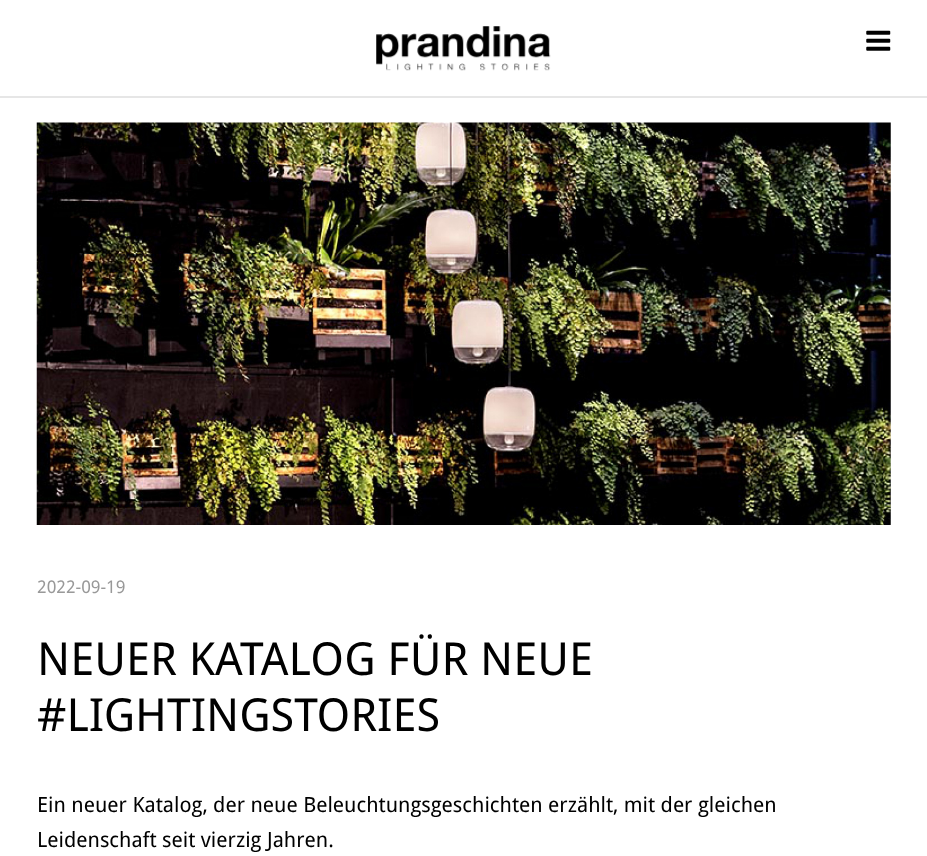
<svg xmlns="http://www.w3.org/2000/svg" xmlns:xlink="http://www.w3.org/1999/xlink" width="927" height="856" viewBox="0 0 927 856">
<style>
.cls-1{font:17.5px Droid Sans;fill:#999999}
.cls-2{font:45.5px Droid Sans;fill:#000000}
.cls-3{font:21px Droid Sans;fill:#000000}
</style>
<rect width="100%" height="100%" fill="#ffffff"/>
<rect fill="#e6e6e6" x="0" y="96" width="927" height="2"/>
<image xlink:href="image0.png" x="376" y="26" width="175" height="45"/>
<image xlink:href="image1.png" x="866" y="30" width="25" height="21"/>
<image xlink:href="image2.png" x="36" y="122" width="855" height="403"/>
<text class="cls-1" x="37" y="593">2022-09-19</text>
<text class="cls-2"><tspan x="37" y="675">NEUER KATALOG FÜR NEUE</tspan><tspan x="37" y="731">#LIGHTINGSTORIES</tspan></text>
<text class="cls-3"><tspan x="37" y="812">Ein neuer Katalog, der neue Beleuchtungsgeschichten erzählt, mit der gleichen</tspan><tspan x="37" y="847">Leidenschaft seit vierzig Jahren.</tspan></text>
</svg>
